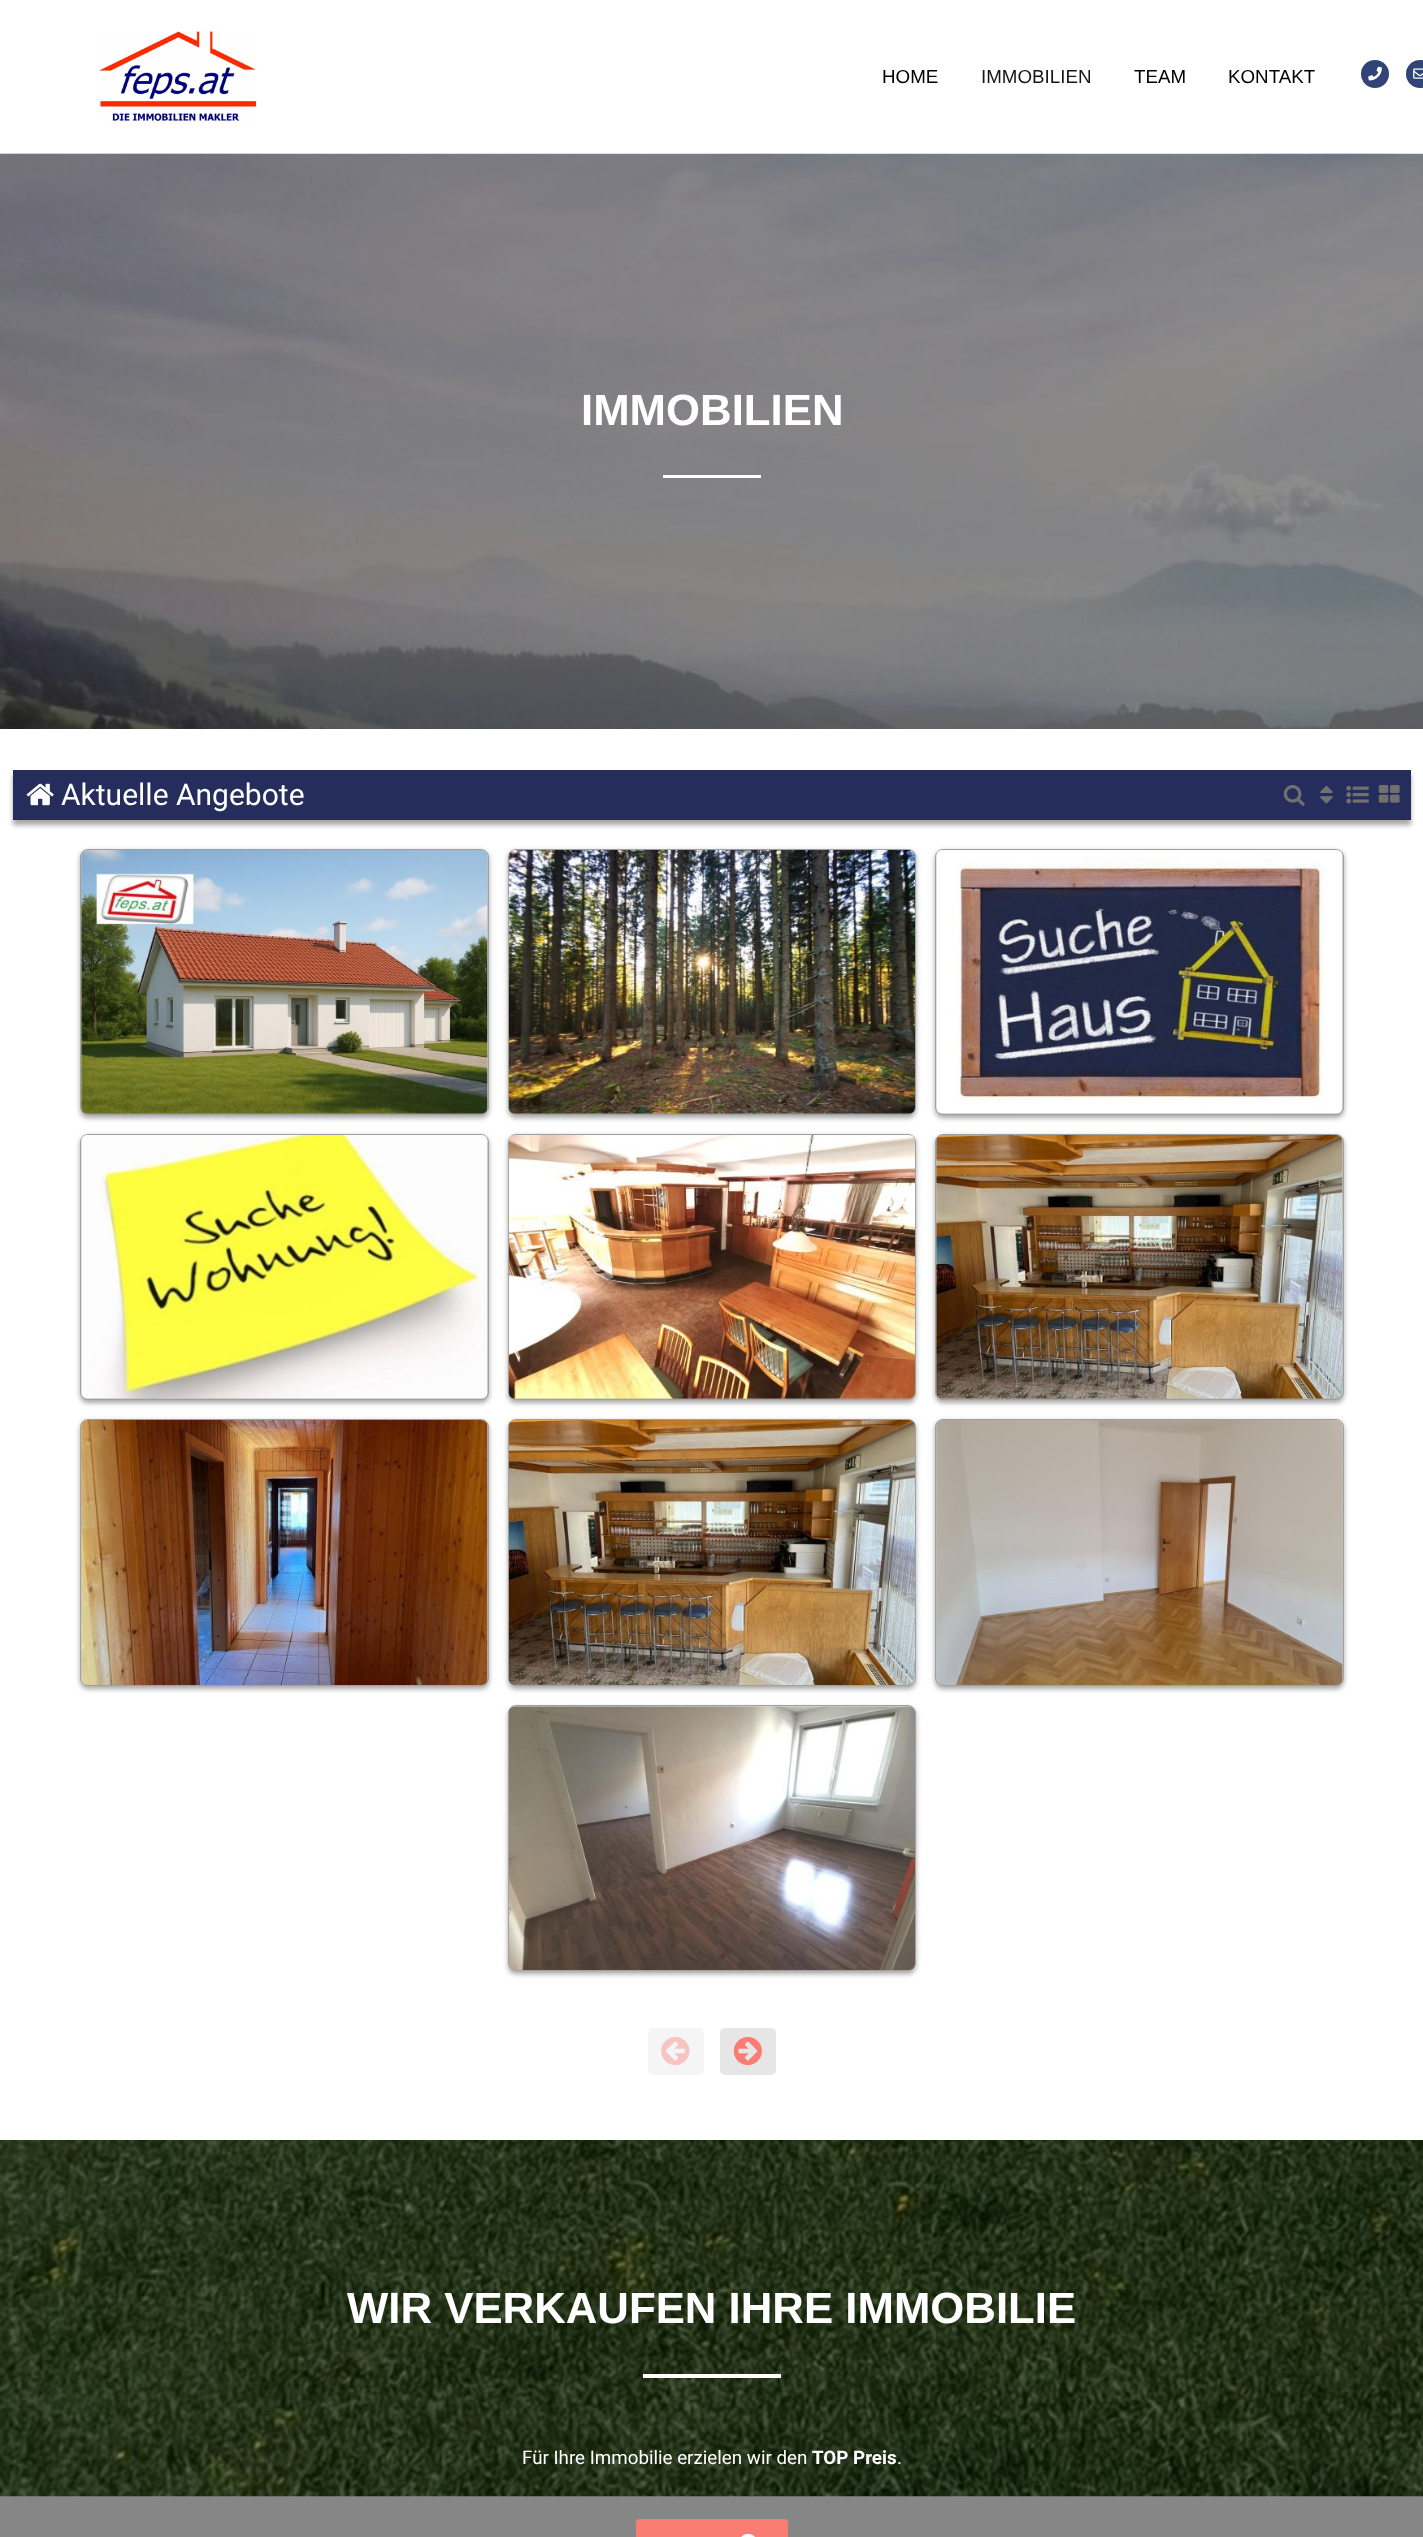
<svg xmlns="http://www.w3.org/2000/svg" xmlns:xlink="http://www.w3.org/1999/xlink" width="1423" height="2537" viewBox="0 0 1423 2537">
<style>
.cls-1{font:18.75px Liberation Sans;fill:#000000}
.cls-2{font:18.75px Liberation Sans;fill:#161616}
.cls-3{font:bold 43.75px Liberation Sans;fill:#ffffff}
.cls-4{font:30px Roboto;fill:#ffffff}
.cls-5{font:18.75px Roboto;fill:#ffffff}
.cls-6{font:bold 18.75px Roboto;fill:#ffffff}
</style>
<rect width="100%" height="100%" fill="#ffffff"/>
<image xlink:href="image0.png" x="99" y="31" width="158" height="91"/>
<circle fill="#304477" cx="1375" cy="74" r="14"/>
<image xlink:href="image1.png" x="1368" y="66" width="14" height="15"/>
<circle fill="#304477" cx="1420" cy="74" r="14"/>
<image xlink:href="image2.png" x="1413" y="68" width="10" height="11"/>
<image xlink:href="image3.png" x="0" y="153" width="1423" height="576"/>
<rect fill="#ffffff" x="663" y="475" width="98" height="3"/>
<rect fill="#000000" fill-opacity="0.35" filter="blur(2.5px)" x="13" y="775" width="1398" height="50"/>
<rect fill="#242d5c" x="13" y="770" width="1398" height="50"/>
<image xlink:href="image4.png" x="26" y="783" width="28" height="23"/>
<image xlink:href="image5.png" x="1283" y="785" width="22" height="21"/>
<image xlink:href="image6.png" x="1320" y="785" width="13" height="19"/>
<image xlink:href="image7.png" x="1346" y="785" width="23" height="19"/>
<image xlink:href="image8.png" x="1378" y="785" width="22" height="18"/>
<rect fill="#000000" fill-opacity="0.35" filter="blur(2.5px)" x="80" y="851" width="409" height="267" rx="8"/>
<rect fill="none" stroke="#a0a0a0" x="80.5" y="849.5" width="408" height="265" rx="7.5"/>
<image xlink:href="image9.png" x="81" y="850" width="407" height="264"/>
<rect fill="#000000" fill-opacity="0.35" filter="blur(2.5px)" x="508" y="851" width="408" height="267" rx="8"/>
<rect fill="none" stroke="#a0a0a0" x="508.5" y="849.5" width="407" height="265" rx="7.5"/>
<image xlink:href="image10.png" x="508" y="850" width="407" height="264"/>
<rect fill="#000000" fill-opacity="0.35" filter="blur(2.5px)" x="935" y="851" width="409" height="267" rx="8"/>
<rect fill="none" stroke="#a0a0a0" x="935.5" y="849.5" width="408" height="265" rx="7.5"/>
<image xlink:href="image11.png" x="936" y="850" width="407" height="264"/>
<rect fill="#000000" fill-opacity="0.35" filter="blur(2.5px)" x="80" y="1136" width="409" height="267" rx="8"/>
<rect fill="none" stroke="#a0a0a0" x="80.5" y="1134.5" width="408" height="265" rx="7.5"/>
<image xlink:href="image12.png" x="81" y="1135" width="407" height="264"/>
<rect fill="#000000" fill-opacity="0.35" filter="blur(2.5px)" x="508" y="1136" width="408" height="267" rx="8"/>
<rect fill="none" stroke="#a0a0a0" x="508.5" y="1134.5" width="407" height="265" rx="7.5"/>
<image xlink:href="image13.png" x="508" y="1135" width="407" height="264"/>
<rect fill="#000000" fill-opacity="0.35" filter="blur(2.5px)" x="935" y="1136" width="409" height="267" rx="8"/>
<rect fill="none" stroke="#a0a0a0" x="935.5" y="1134.5" width="408" height="265" rx="7.5"/>
<image xlink:href="image14.png" x="936" y="1135" width="407" height="264"/>
<rect fill="#000000" fill-opacity="0.35" filter="blur(2.5px)" x="80" y="1421" width="409" height="268" rx="8"/>
<rect fill="none" stroke="#a0a0a0" x="80.5" y="1419.5" width="408" height="266" rx="7.5"/>
<image xlink:href="image15.png" x="81" y="1420" width="407" height="265"/>
<rect fill="#000000" fill-opacity="0.35" filter="blur(2.5px)" x="508" y="1421" width="408" height="268" rx="8"/>
<rect fill="none" stroke="#a0a0a0" x="508.5" y="1419.5" width="407" height="266" rx="7.5"/>
<image xlink:href="image16.png" x="508" y="1420" width="407" height="265"/>
<rect fill="#000000" fill-opacity="0.35" filter="blur(2.5px)" x="935" y="1421" width="409" height="268" rx="8"/>
<rect fill="none" stroke="#a0a0a0" x="935.5" y="1419.5" width="408" height="266" rx="7.5"/>
<image xlink:href="image17.png" x="936" y="1420" width="407" height="265"/>
<rect fill="#000000" fill-opacity="0.35" filter="blur(2.5px)" x="508" y="1708" width="408" height="266" rx="8"/>
<rect fill="none" stroke="#a0a0a0" x="508.5" y="1705.5" width="407" height="265" rx="7.5"/>
<image xlink:href="image18.png" x="508" y="1706" width="407" height="264"/>
<rect fill="#f5f5f5" x="648" y="2028" width="56" height="47" rx="5"/>
<image xlink:href="image19.png" x="661" y="2037" width="29" height="28"/>
<rect fill="#e6e6e6" x="720" y="2028" width="56" height="47" rx="5"/>
<image xlink:href="image20.png" x="733" y="2036" width="29" height="30"/>
<rect fill="#868686" x="0" y="2496" width="1423" height="41"/>
<image xlink:href="image21.png" x="0" y="2140" width="1423" height="357"/>
<rect fill="#ffffff" x="643" y="2374" width="138" height="4"/>
<rect fill="#fb7c73" x="636" y="2519" width="152" height="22" rx="4"/>
<image xlink:href="image22.png" x="741" y="2533" width="14" height="4"/>
<text class="cls-1" x="882" y="83">HOME</text>
<text class="cls-2" x="981" y="83">IMMOBILIEN</text>
<text class="cls-1" x="1134" y="83">TEAM</text>
<text class="cls-1" x="1228" y="83">KONTAKT</text>
<text class="cls-3" x="581" y="425">IMMOBILIEN</text>
<text class="cls-4" x="61" y="805">Aktuelle Angebote</text>
<text class="cls-3" x="347" y="2323">WIR VERKAUFEN IHRE IMMOBILIE</text>
<text class="cls-5" x="522" y="2464">Für Ihre Immobilie erzielen wir den</text>
<text class="cls-6" x="812" y="2464">TOP Preis</text>
<text class="cls-5" x="897" y="2464">.</text>
</svg>
